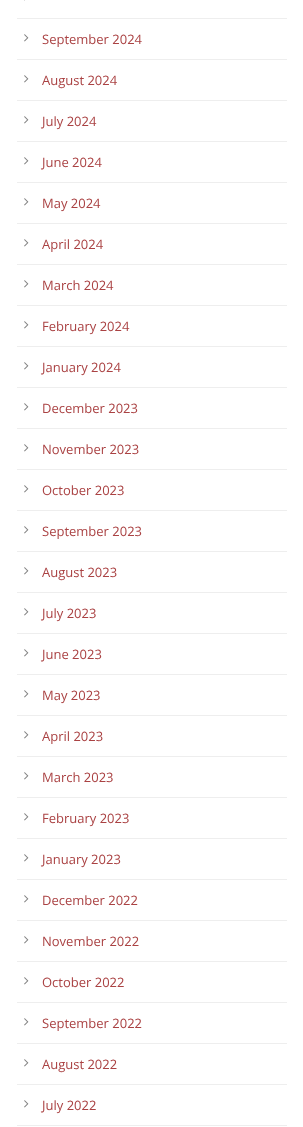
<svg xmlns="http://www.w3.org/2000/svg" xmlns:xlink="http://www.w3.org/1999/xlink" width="303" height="1127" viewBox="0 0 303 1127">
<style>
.cls-1{font:13px Open Sans;fill:#aa4243}
</style>
<rect width="100%" height="100%" fill="#ffffff"/>
<rect fill="#eeeeee" x="17" y="18" width="270" height="1"/>
<rect fill="#e1e1e1" x="24" y="0" width="1" height="1"/>
<rect fill="#eeeeee" x="17" y="59" width="270" height="1"/>
<image xlink:href="image0.png" x="24" y="34" width="5" height="8"/>
<rect fill="#eeeeee" x="17" y="100" width="270" height="1"/>
<image xlink:href="image0.png" x="24" y="75" width="5" height="8"/>
<rect fill="#eeeeee" x="17" y="141" width="270" height="1"/>
<image xlink:href="image0.png" x="24" y="116" width="5" height="8"/>
<rect fill="#eeeeee" x="17" y="182" width="270" height="1"/>
<image xlink:href="image0.png" x="24" y="157" width="5" height="8"/>
<rect fill="#eeeeee" x="17" y="223" width="270" height="1"/>
<image xlink:href="image0.png" x="24" y="198" width="5" height="8"/>
<rect fill="#eeeeee" x="17" y="264" width="270" height="1"/>
<image xlink:href="image0.png" x="24" y="239" width="5" height="8"/>
<rect fill="#eeeeee" x="17" y="305" width="270" height="1"/>
<image xlink:href="image0.png" x="24" y="280" width="5" height="8"/>
<rect fill="#eeeeee" x="17" y="346" width="270" height="1"/>
<image xlink:href="image0.png" x="24" y="321" width="5" height="8"/>
<rect fill="#eeeeee" x="17" y="387" width="270" height="1"/>
<image xlink:href="image0.png" x="24" y="362" width="5" height="8"/>
<rect fill="#eeeeee" x="17" y="428" width="270" height="1"/>
<image xlink:href="image0.png" x="24" y="403" width="5" height="8"/>
<rect fill="#eeeeee" x="17" y="469" width="270" height="1"/>
<image xlink:href="image0.png" x="24" y="444" width="5" height="8"/>
<rect fill="#eeeeee" x="17" y="510" width="270" height="1"/>
<image xlink:href="image0.png" x="24" y="485" width="5" height="8"/>
<rect fill="#eeeeee" x="17" y="551" width="270" height="1"/>
<image xlink:href="image0.png" x="24" y="526" width="5" height="8"/>
<rect fill="#eeeeee" x="17" y="592" width="270" height="1"/>
<image xlink:href="image0.png" x="24" y="567" width="5" height="8"/>
<rect fill="#eeeeee" x="17" y="633" width="270" height="1"/>
<image xlink:href="image0.png" x="24" y="608" width="5" height="8"/>
<rect fill="#eeeeee" x="17" y="674" width="270" height="1"/>
<image xlink:href="image0.png" x="24" y="649" width="5" height="8"/>
<rect fill="#eeeeee" x="17" y="715" width="270" height="1"/>
<image xlink:href="image0.png" x="24" y="690" width="5" height="8"/>
<rect fill="#eeeeee" x="17" y="756" width="270" height="1"/>
<image xlink:href="image0.png" x="24" y="731" width="5" height="8"/>
<rect fill="#eeeeee" x="17" y="797" width="270" height="1"/>
<image xlink:href="image0.png" x="24" y="772" width="5" height="8"/>
<rect fill="#eeeeee" x="17" y="838" width="270" height="1"/>
<image xlink:href="image0.png" x="24" y="813" width="5" height="8"/>
<rect fill="#eeeeee" x="17" y="879" width="270" height="1"/>
<image xlink:href="image0.png" x="24" y="854" width="5" height="8"/>
<rect fill="#eeeeee" x="17" y="920" width="270" height="1"/>
<image xlink:href="image0.png" x="24" y="895" width="5" height="8"/>
<rect fill="#eeeeee" x="17" y="961" width="270" height="1"/>
<image xlink:href="image0.png" x="24" y="936" width="5" height="8"/>
<rect fill="#eeeeee" x="17" y="1002" width="270" height="1"/>
<image xlink:href="image0.png" x="24" y="977" width="5" height="8"/>
<rect fill="#eeeeee" x="17" y="1043" width="270" height="1"/>
<image xlink:href="image0.png" x="24" y="1018" width="5" height="8"/>
<rect fill="#eeeeee" x="17" y="1084" width="270" height="1"/>
<image xlink:href="image0.png" x="24" y="1059" width="5" height="8"/>
<rect fill="#eeeeee" x="17" y="1125" width="270" height="1"/>
<image xlink:href="image0.png" x="24" y="1100" width="5" height="8"/>
<text class="cls-1" x="42" y="44">September 2024</text>
<text class="cls-1" x="42" y="85">August 2024</text>
<text class="cls-1" x="42" y="126">July 2024</text>
<text class="cls-1" x="42" y="167">June 2024</text>
<text class="cls-1" x="42" y="208">May 2024</text>
<text class="cls-1" x="42" y="249">April 2024</text>
<text class="cls-1" x="42" y="290">March 2024</text>
<text class="cls-1" x="42" y="331">February 2024</text>
<text class="cls-1" x="42" y="372">January 2024</text>
<text class="cls-1" x="42" y="413">December 2023</text>
<text class="cls-1" x="42" y="454">November 2023</text>
<text class="cls-1" x="42" y="495">October 2023</text>
<text class="cls-1" x="42" y="536">September 2023</text>
<text class="cls-1" x="42" y="577">August 2023</text>
<text class="cls-1" x="42" y="618">July 2023</text>
<text class="cls-1" x="42" y="659">June 2023</text>
<text class="cls-1" x="42" y="700">May 2023</text>
<text class="cls-1" x="42" y="741">April 2023</text>
<text class="cls-1" x="42" y="782">March 2023</text>
<text class="cls-1" x="42" y="823">February 2023</text>
<text class="cls-1" x="42" y="864">January 2023</text>
<text class="cls-1" x="42" y="905">December 2022</text>
<text class="cls-1" x="42" y="946">November 2022</text>
<text class="cls-1" x="42" y="987">October 2022</text>
<text class="cls-1" x="42" y="1028">September 2022</text>
<text class="cls-1" x="42" y="1069">August 2022</text>
<text class="cls-1" x="42" y="1110">July 2022</text>
</svg>
